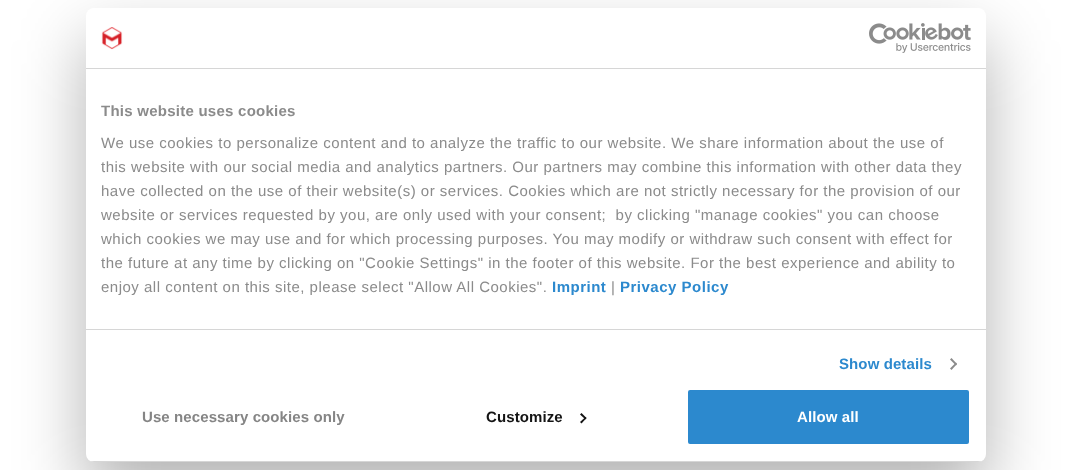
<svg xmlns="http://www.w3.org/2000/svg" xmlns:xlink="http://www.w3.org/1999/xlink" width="1071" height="470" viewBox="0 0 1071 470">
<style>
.cls-1{font:bold 15px Liberation Sans;letter-spacing:0.25px;fill:#8b8b8b}
.cls-2{font:15px Liberation Sans;letter-spacing:0.5px;fill:#8b8b8b}
.cls-3{font:bold 15px Liberation Sans;letter-spacing:0.5px;fill:#2c89ce}
.cls-4{font:bold 15px Liberation Sans;letter-spacing:0.1px;fill:#2c89ce}
.cls-5{font:bold 15px Liberation Sans;letter-spacing:0.1px;fill:#858585}
.cls-6{font:bold 15px Liberation Sans;letter-spacing:0.1px;fill:#141414}
.cls-7{font:bold 15px Liberation Sans;letter-spacing:0.1px;fill:#ffffff}
</style>
<defs>
<clipPath id="clip1"><rect x="86" y="8" width="900" height="454" rx="8"/></clipPath>
</defs>
<rect width="100%" height="100%" fill="#ffffff"/>
<rect fill="#000000" fill-opacity="0.3" filter="blur(34px)" x="86" y="40" width="900" height="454" rx="8"/>
<rect fill="#ffffff" x="86" y="8" width="900" height="454" rx="8"/>
<rect fill="#d6d6d6" x="86" y="68" width="900" height="1"/>
<image xlink:href="image0.png" x="101" y="27" width="22" height="23"/>
<image xlink:href="image1.png" x="869" y="23" width="102" height="30"/>
<rect fill="#d6d6d6" x="86" y="329" width="900" height="1"/>
<path fill="#8b8b8b" d="M951.5 358L957 364L956 365.5L950 359.5Z"/>
<path fill="#8b8b8b" d="M956 362.5L957 364L951.5 370L950 368.5Z"/>
<g clip-path="url(#clip1)">
<rect fill="#d6d6d6" x="86" y="461" width="900" height="1"/>
</g>
<path fill="#141414" d="M581.5 413L586.5 418L585.5 419.5L580 414.5Z"/>
<path fill="#141414" d="M585.5 417L586.5 418L581.5 423.5L580 422Z"/>
<rect fill="#2c89ce" stroke="#ffffff" stroke-width="2" x="687" y="389" width="283" height="56" rx="3"/>
<text class="cls-1" x="101" y="116">This website uses cookies</text>
<text class="cls-2" xml:space="preserve"><tspan x="101" y="148">We use cookies to personalize content and to analyze the traffic to our website. We share information about the use of</tspan><tspan x="101" y="172">this website with our social media and analytics partners. Our partners may combine this information with other data they</tspan><tspan x="101" y="196">have collected on the use of their website(s) or services. Cookies which are not strictly necessary for the provision of our</tspan><tspan x="101" y="220">website or services requested by you, are only used with your consent;  by clicking "manage cookies" you can choose</tspan><tspan x="101" y="244">which cookies we may use and for which processing purposes. You may modify or withdraw such consent with effect for</tspan><tspan x="101" y="268">the future at any time by clicking on "Cookie Settings" in the footer of this website. For the best experience and ability to</tspan><tspan x="101" y="292">enjoy all content on this site, please select "Allow All Cookies".</tspan></text>
<text class="cls-3" x="552" y="292">Imprint</text>
<text class="cls-2" x="611" y="292">|</text>
<text class="cls-3" x="620" y="292">Privacy Policy</text>
<text class="cls-4" x="839" y="369">Show details</text>
<text class="cls-5" x="142" y="422">Use necessary cookies only</text>
<text class="cls-6" x="486" y="422">Customize</text>
<text class="cls-7" x="797" y="422">Allow all</text>
</svg>
